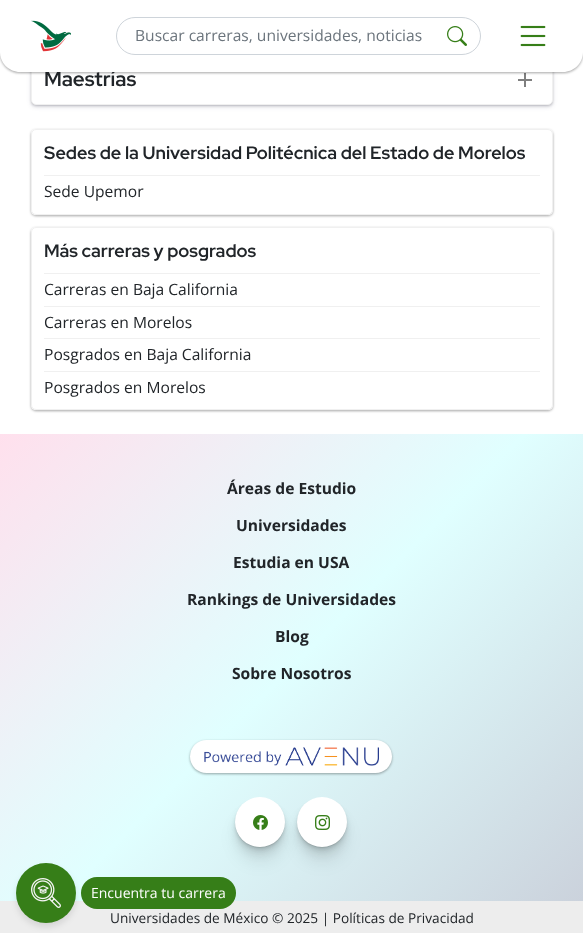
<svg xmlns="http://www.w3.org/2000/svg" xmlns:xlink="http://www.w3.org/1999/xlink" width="583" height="933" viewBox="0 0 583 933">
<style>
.cls-1{font:bold 20.5px Red Hat Display;fill:#212529}
.cls-2{font:15.6px Open Sans;fill:#6c757d}
.cls-3{font:bold 18px Red Hat Display;fill:#212529}
.cls-4{font:15.6px Open Sans;fill:#212529}
.cls-5{font:bold 15.6px Open Sans;fill:#212529}
.cls-6{font:13.65px Open Sans;fill:#212529}
.cls-7{font:14px Open Sans;fill:#ffffff}
</style>
<defs>
<clipPath id="clip1"><path d="M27 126H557V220H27ZM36 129H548C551 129 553 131 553 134V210C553 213 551 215 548 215H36C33 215 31 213 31 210V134C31 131 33 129 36 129Z" clip-rule="evenodd"/></clipPath>
<clipPath id="clip2"><path d="M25 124H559V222H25ZM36 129H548C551 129 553 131 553 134V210C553 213 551 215 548 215H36C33 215 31 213 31 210V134C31 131 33 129 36 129Z" clip-rule="evenodd"/></clipPath>
<clipPath id="clip3"><path d="M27 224H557V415H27ZM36 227H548C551 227 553 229 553 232V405C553 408 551 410 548 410H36C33 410 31 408 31 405V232C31 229 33 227 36 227Z" clip-rule="evenodd"/></clipPath>
<clipPath id="clip4"><path d="M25 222H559V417H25ZM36 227H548C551 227 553 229 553 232V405C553 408 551 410 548 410H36C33 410 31 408 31 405V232C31 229 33 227 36 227Z" clip-rule="evenodd"/></clipPath>
<linearGradient id="g1" gradientUnits="userSpaceOnUse" x1="29" y1="405" x2="554" y2="930"><stop offset="0" stop-color="#ffe0ed"/><stop offset="0.5" stop-color="#e0ffff"/><stop offset="1" stop-color="#cbd2dc"/></linearGradient>
</defs>
<rect width="100%" height="100%" fill="#ffffff"/>
<rect fill="#000000" fill-opacity="0.3" filter="blur(1.5px)" x="32" y="56" width="520" height="49" rx="4"/>
<rect fill="#32325d" fill-opacity="0.25" filter="blur(2.5px)" x="32" y="57" width="520" height="49" rx="4"/>
<rect fill="#ffffff" stroke="#f0f0f0" x="31.5" y="54.5" width="521" height="50" rx="4.5"/>
<image xlink:href="image3.png" x="518" y="73" width="14" height="14"/>
<rect fill="#000000" fill-opacity="0.24" filter="blur(1px)" x="0" y="1" width="583" height="72" rx="20"/>
<rect fill="#000000" fill-opacity="0.12" filter="blur(1.5px)" x="0" y="1" width="583" height="72" rx="20"/>
<g clip-path="url(#clip1)">
<rect fill="#000000" fill-opacity="0.24" filter="blur(1px)" x="31" y="130" width="522" height="86" rx="5"/>
</g>
<g clip-path="url(#clip2)">
<rect fill="#000000" fill-opacity="0.12" filter="blur(1.5px)" x="31" y="130" width="522" height="86" rx="5"/>
</g>
<rect fill="none" stroke="#f0f0f0" x="31.5" y="129.5" width="521" height="85" rx="4.5"/>
<rect fill="#f0f0f0" x="44" y="175" width="496" height="1"/>
<g clip-path="url(#clip3)">
<rect fill="#000000" fill-opacity="0.24" filter="blur(1px)" x="31" y="228" width="522" height="183" rx="5"/>
</g>
<g clip-path="url(#clip4)">
<rect fill="#000000" fill-opacity="0.12" filter="blur(1.5px)" x="31" y="228" width="522" height="183" rx="5"/>
</g>
<rect fill="none" stroke="#f0f0f0" x="31.5" y="227.5" width="521" height="182" rx="4.5"/>
<rect fill="#f0f0f0" x="44" y="273" width="496" height="1"/>
<rect fill="#f0f0f0" x="44" y="306" width="496" height="1"/>
<rect fill="#f0f0f0" x="44" y="338" width="496" height="1"/>
<rect fill="#f0f0f0" x="44" y="371" width="496" height="1"/>
<rect fill="url(#g1)" x="0" y="434" width="583" height="467"/>
<rect fill="#000000" fill-opacity="0.24" filter="blur(1px)" x="190" y="741" width="202" height="33" rx="16.5"/>
<rect fill="#000000" fill-opacity="0.12" filter="blur(1.5px)" x="190" y="741" width="202" height="33" rx="16.5"/>
<rect fill="#ffffff" x="190" y="740" width="202" height="33" rx="16.5"/>
<image xlink:href="image4.png" x="204" y="747" width="175" height="19"/>
<rect fill="#000000" fill-opacity="0.07" filter="blur(8px)" x="235" y="813" width="50" height="50" rx="25"/>
<rect fill="#000000" fill-opacity="0.07" filter="blur(4px)" x="235" y="805" width="50" height="50" rx="25"/>
<rect fill="#000000" fill-opacity="0.07" filter="blur(2px)" x="235" y="801" width="50" height="50" rx="25"/>
<rect fill="#000000" fill-opacity="0.07" filter="blur(1px)" x="235" y="799" width="50" height="50" rx="25"/>
<rect fill="#000000" fill-opacity="0.07" filter="blur(0.5px)" x="235" y="798" width="50" height="50" rx="25"/>
<circle fill="#ffffff" cx="260" cy="822" r="25"/>
<image xlink:href="image5.png" x="253" y="815" width="15" height="15"/>
<rect fill="#000000" fill-opacity="0.07" filter="blur(8px)" x="297" y="813" width="50" height="50" rx="25"/>
<rect fill="#000000" fill-opacity="0.07" filter="blur(4px)" x="297" y="805" width="50" height="50" rx="25"/>
<rect fill="#000000" fill-opacity="0.07" filter="blur(2px)" x="297" y="801" width="50" height="50" rx="25"/>
<rect fill="#000000" fill-opacity="0.07" filter="blur(1px)" x="297" y="799" width="50" height="50" rx="25"/>
<rect fill="#000000" fill-opacity="0.07" filter="blur(0.5px)" x="297" y="798" width="50" height="50" rx="25"/>
<circle fill="#ffffff" cx="322" cy="822" r="25"/>
<image xlink:href="image6.png" x="315" y="815" width="15" height="15"/>
<rect fill="#ededed" x="0" y="901" width="583" height="32"/>
<rect fill="#000000" fill-opacity="0.1" filter="blur(3px)" x="16" y="867" width="60" height="60" rx="30"/>
<circle fill="#367e18" cx="46" cy="893" r="30"/>
<image xlink:href="image7.png" x="31" y="878" width="30" height="30"/>
<rect fill="#367e18" x="81" y="877" width="155" height="32" rx="16"/>
<text class="cls-1" x="44" y="86">Maestrías</text>
<path fill="#ffffff" d="M0 0H583V52C583 63 574 72 563 72H20C9 72 0 63 0 52Z"/>
<rect fill="none" stroke="#ced4da" x="116.5" y="17.5" width="364" height="37" rx="18.5"/>
<image xlink:href="image1.png" x="447" y="26" width="20" height="20"/>
<text class="cls-2" x="135" y="41">Buscar carreras, universidades, noticias</text>
<image xlink:href="image2.png" x="520" y="25" width="26" height="22"/>
<image xlink:href="image0.png" x="31" y="20" width="40" height="32"/>
<text class="cls-3" x="44" y="159">Sedes de la Universidad Politécnica del Estado de Morelos</text>
<text class="cls-4" x="44" y="197">Sede Upemor</text>
<text class="cls-3" x="44" y="257">Más carreras y posgrados</text>
<text class="cls-4" x="44" y="295">Carreras en Baja California</text>
<text class="cls-4" x="44" y="328">Carreras en Morelos</text>
<text class="cls-4" x="44" y="360">Posgrados en Baja California</text>
<text class="cls-4" x="44" y="393">Posgrados en Morelos</text>
<text class="cls-5" x="227" y="494">Áreas de Estudio</text>
<text class="cls-5" x="236" y="531">Universidades</text>
<text class="cls-5" x="233" y="568">Estudia en USA</text>
<text class="cls-5" x="187" y="605">Rankings de Universidades</text>
<text class="cls-5" x="275" y="642">Blog</text>
<text class="cls-5" x="232" y="679">Sobre Nosotros</text>
<text class="cls-6" x="110" y="923">Universidades de México © 2025 | Políticas de Privacidad</text>
<text class="cls-7" x="91" y="898">Encuentra tu carrera</text>
</svg>
